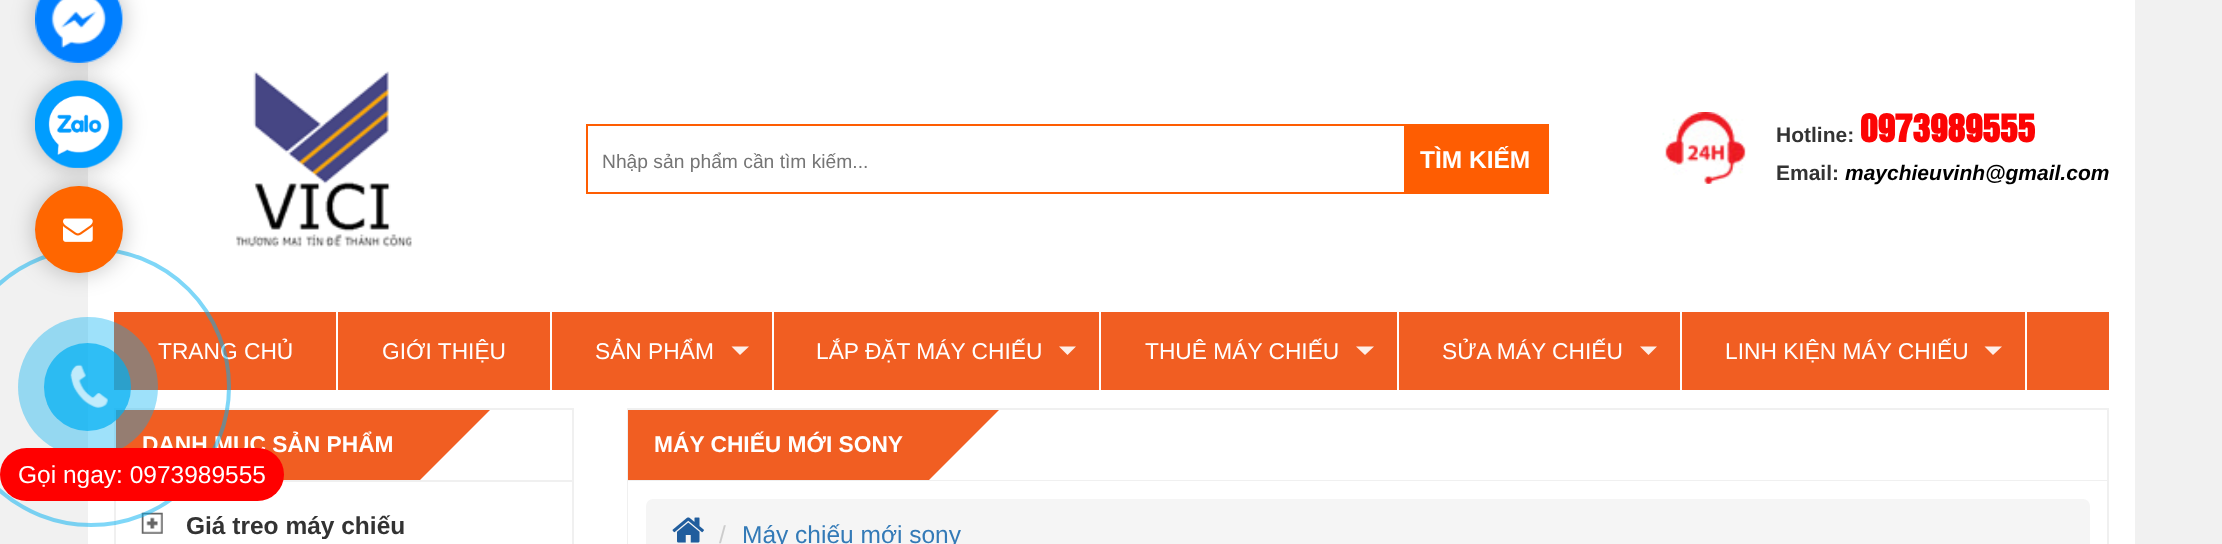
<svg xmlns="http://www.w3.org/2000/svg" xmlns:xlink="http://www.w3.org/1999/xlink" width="2222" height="544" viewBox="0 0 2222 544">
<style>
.cls-1{font:19.25px Liberation Sans;fill:#757575}
.cls-2{font:bold 24.5px Liberation Sans;fill:#ffffff}
.cls-3{font:bold 21px Liberation Sans;fill:#333333}
.cls-4{font:bold 35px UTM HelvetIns;fill:#fc0404}
.cls-5{font:italic bold 21px Liberation Sans;fill:#000000}
.cls-6{font:22.75px Liberation Sans;fill:#ffffff}
.cls-7{font:bold 22.75px Liberation Sans;fill:#ffffff}
.cls-8{font:bold 24.5px Liberation Sans;fill:#333333}
.cls-9{font:24.5px Liberation Sans;fill:#cccccc}
.cls-10{font:24.5px Liberation Sans;fill:#337ab7}
.cls-11{font:24.5px Liberation Sans;fill:#ffffff}
</style>
<defs>
<clipPath id="clip1"><path d="M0 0H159V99H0ZM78.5-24H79.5C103.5-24 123-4.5 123 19.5C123 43.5 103.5 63 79.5 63H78.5C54.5 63 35 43.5 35 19.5C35-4.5 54.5-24 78.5-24Z" clip-rule="evenodd"/></clipPath>
</defs>
<rect width="100%" height="100%" fill="#f1f1f1"/>
<rect fill="#ffffff" x="88" y="0" width="2047" height="544"/>
<g clip-path="url(#clip1)">
<rect fill="#000000" fill-opacity="0.25" filter="blur(11.5px)" x="35" y="-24" width="88" height="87" rx="43.5"/>
</g>
<rect fill="#000000" fill-opacity="0.25" filter="blur(11.5px)" x="35" y="81" width="88" height="87" rx="43.5"/>
<image xlink:href="image0.png" x="35" y="0" width="88" height="63"/>
<image xlink:href="image3.png" x="236" y="71" width="176" height="176"/>
<rect fill="none" stroke="#fe5d02" stroke-width="2" x="587" y="125" width="961" height="68"/>
<rect fill="#fe5d02" x="1404" y="126" width="143" height="66"/>
<image xlink:href="image4.png" x="1662" y="112" width="84" height="72"/>
<rect fill="#f15e22" x="114" y="312" width="1995" height="78"/>
<rect fill="#ffffff" x="336" y="312" width="2" height="78"/>
<rect fill="#ffffff" x="550" y="312" width="2" height="78"/>
<rect fill="#ffffff" x="772" y="312" width="2" height="78"/>
<path fill="#feefe9" d="M731.5 346.5H749L740 355Z"/>
<rect fill="#ffffff" x="1099" y="312" width="2" height="78"/>
<path fill="#feefe9" d="M1059 346.5H1076L1067.5 355Z"/>
<rect fill="#ffffff" x="1397" y="312" width="2" height="78"/>
<path fill="#feefe9" d="M1356 346.5H1374L1365 355Z"/>
<rect fill="#ffffff" x="1680" y="312" width="2" height="78"/>
<path fill="#feefe9" d="M1640 346.5H1657L1648.5 355Z"/>
<rect fill="#ffffff" x="2025" y="312" width="2" height="78"/>
<path fill="#feefe9" d="M1984.5 346.5H2002L1993 355Z"/>
<rect fill="none" stroke="#f0f0f0" stroke-width="2" x="115" y="409" width="458" height="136"/>
<rect fill="#f0f0f0" x="282" y="480" width="290" height="2"/>
<rect fill="#f15e22" x="116" y="410" width="304" height="70"/>
<path fill="#f15e22" d="M420 480V410H490Z"/>
<image xlink:href="image5.png" x="141" y="512" width="22" height="22"/>
<rect fill="none" stroke="#f0f0f0" stroke-width="2" x="628" y="409" width="1480" height="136"/>
<rect fill="#f0f0f0" x="628" y="480" width="1479" height="1"/>
<rect fill="#f15e22" x="628" y="410" width="301" height="70"/>
<path fill="#f15e22" d="M929 480V410H999Z"/>
<rect fill="#ffffff" x="628" y="481" width="1" height="63"/>
<rect fill="#f5f5f5" x="646" y="499" width="1444" height="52" rx="7"/>
<image xlink:href="image6.png" x="672" y="517" width="32" height="26"/>
<text class="cls-1" x="602" y="168">Nhập sản phẩm cần tìm kiếm...</text>
<text class="cls-2" x="1420" y="168">TÌM KIẾM</text>
<text class="cls-3" x="1776" y="142">Hotline:</text>
<text class="cls-4" x="1860" y="142">0973989555</text>
<text class="cls-3" x="1776" y="180">Email:</text>
<text class="cls-5" x="1845" y="180">maychieuvinh@gmail.com</text>
<text class="cls-6" x="158" y="359">TRANG CHỦ</text>
<text class="cls-6" x="382" y="359">GIỚI THIỆU</text>
<text class="cls-6" x="595" y="359">SẢN PHẨM</text>
<text class="cls-6" x="816" y="359">LẮP ĐẶT MÁY CHIẾU</text>
<text class="cls-6" x="1145" y="359">THUÊ MÁY CHIẾU</text>
<text class="cls-6" x="1442" y="359">SỬA MÁY CHIẾU</text>
<text class="cls-6" x="1725" y="359">LINH KIỆN MÁY CHIẾU</text>
<text class="cls-7" x="142" y="452">DANH MỤC SẢN PHẨM</text>
<text class="cls-8" x="186" y="534">Giá treo máy chiếu</text>
<text class="cls-7" x="654" y="452">MÁY CHIẾU MỚI SONY</text>
<text class="cls-9" x="719" y="543">/</text>
<text class="cls-10" x="742" y="543">Máy chiếu mới sony</text>
<circle fill="none" stroke="#00aff2" stroke-opacity="0.5" stroke-width="4" cx="91" cy="387" r="138"/>
<rect fill="#000000" fill-opacity="0.25" filter="blur(11.5px)" x="35" y="186" width="88" height="87" rx="43.5"/>
<rect fill="#ff6600" x="35" y="186" width="88" height="87" rx="43.5"/>
<image xlink:href="image2.png" x="63" y="218" width="30" height="24"/>
<image xlink:href="image1.png" x="35" y="80" width="88" height="88"/>
<circle fill="#00aff2" fill-opacity="0.38" cx="88" cy="387" r="70"/>
<rect fill="#00aff2" fill-opacity="0.7" x="44" y="343" width="87" height="88" rx="43.5"/>
<image xlink:href="image7.png" x="70" y="364" width="38" height="44"/>
<rect fill="#ff0000" x="0" y="448" width="284" height="53" rx="26.5"/>
<text class="cls-11" x="18" y="483">Gọi ngay: 0973989555</text>
</svg>
